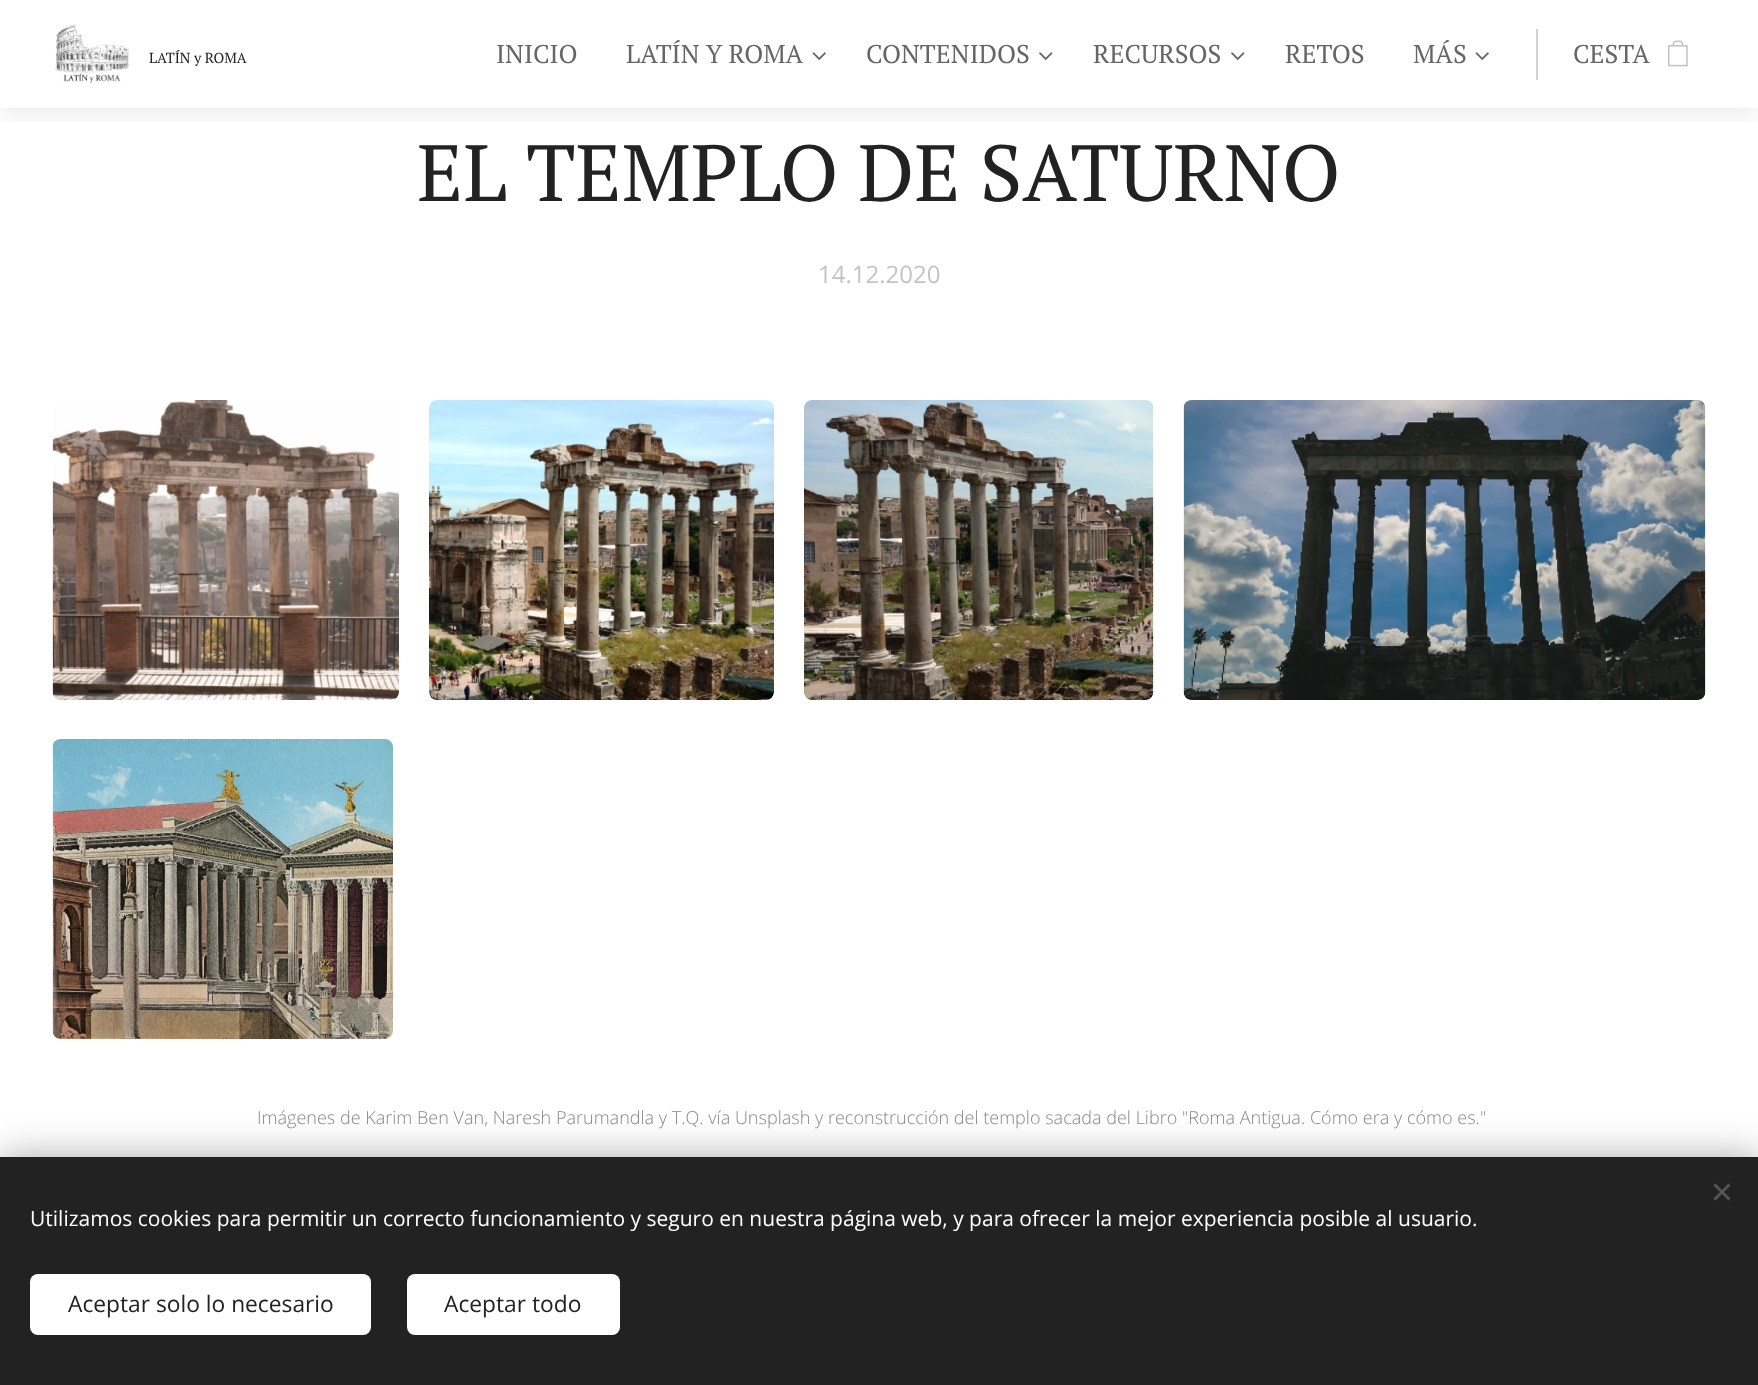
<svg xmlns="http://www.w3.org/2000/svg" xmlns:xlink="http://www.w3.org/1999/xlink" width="1758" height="1385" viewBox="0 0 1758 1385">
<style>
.cls-1{font:14.5px PT Serif;fill:#222222}
.cls-2{font:25.75px PT Serif;fill:#666666}
.cls-3{font:79.5px PT Serif;fill:#222222}
.cls-4{font:24px Open Sans;fill:#c3c3c3}
.cls-5{font:300 18.05px Open Sans;fill:#888888}
.cls-6{font:21px Open Sans;fill:#ffffff}
.cls-7{font:22.75px Open Sans;fill:#222222}
</style>
<defs>
<clipPath id="clip1"><rect x="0" y="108" width="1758" height="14"/></clipPath>
</defs>
<rect width="100%" height="100%" fill="#ffffff"/>
<g clip-path="url(#clip1)">
<rect fill="#000000" fill-opacity="0.07" filter="blur(11px)" x="0" y="8" width="1758" height="108"/>
</g>
<image xlink:href="image0.png" x="55" y="24" width="74" height="59"/>
<image xlink:href="image1.png" x="812" y="52" width="14" height="8"/>
<image xlink:href="image2.png" x="1039" y="52" width="14" height="8"/>
<image xlink:href="image2.png" x="1231" y="52" width="14" height="8"/>
<image xlink:href="image1.png" x="1475" y="52" width="14" height="8"/>
<rect fill="#d1d1d1" x="1536" y="29" width="2" height="51"/>
<image xlink:href="image3.png" x="1668" y="40" width="20" height="27"/>
<image xlink:href="image4.png" x="52" y="400" width="347" height="300"/>
<image xlink:href="image5.png" x="429" y="400" width="345" height="300"/>
<image xlink:href="image6.png" x="804" y="400" width="350" height="300"/>
<image xlink:href="image7.png" x="1183" y="400" width="523" height="300"/>
<image xlink:href="image8.png" x="52" y="739" width="341" height="300"/>
<rect fill="#000000" fill-opacity="0.33" filter="blur(19px)" x="0" y="1157" width="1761" height="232"/>
<rect fill="#222222" x="0" y="1157" width="1758" height="228"/>
<path fill="#555555" d="M1713.5 1198.5L1728.5 1183.5L1730.5 1185.5L1715.5 1200.5Z"/>
<path fill="#555555" d="M1715.5 1183.5L1730.5 1198.5L1728.5 1200.5L1713.5 1185.5Z"/>
<rect fill="#ffffff" x="30" y="1274" width="341" height="61" rx="8"/>
<rect fill="#ffffff" x="407" y="1274" width="213" height="61" rx="8"/>
<text class="cls-1" x="149" y="63">LATÍN y ROMA</text>
<text class="cls-2" x="496" y="63">INICIO</text>
<text class="cls-2" x="626" y="63">LATÍN Y ROMA</text>
<text class="cls-2" x="866" y="63">CONTENIDOS</text>
<text class="cls-2" x="1093" y="63">RECURSOS</text>
<text class="cls-2" x="1285" y="63">RETOS</text>
<text class="cls-2" x="1413" y="63">MÁS</text>
<text class="cls-2" x="1573" y="63">CESTA</text>
<text class="cls-3" x="417" y="201">EL TEMPLO DE SATURNO</text>
<text class="cls-4" x="818" y="283">14.12.2020</text>
<text class="cls-5" x="257" y="1124">Imágenes de Karim Ben Van, Naresh Parumandla y T.Q. vía Unsplash y reconstrucción del templo sacada del Libro "Roma Antigua. Cómo era y cómo es."</text>
<text class="cls-6" x="30" y="1226">Utilizamos cookies para permitir un correcto funcionamiento y seguro en nuestra página web, y para ofrecer la mejor experiencia posible al usuario.</text>
<text class="cls-7" x="68" y="1312">Aceptar solo lo necesario</text>
<text class="cls-7" x="444" y="1312">Aceptar todo</text>
</svg>
